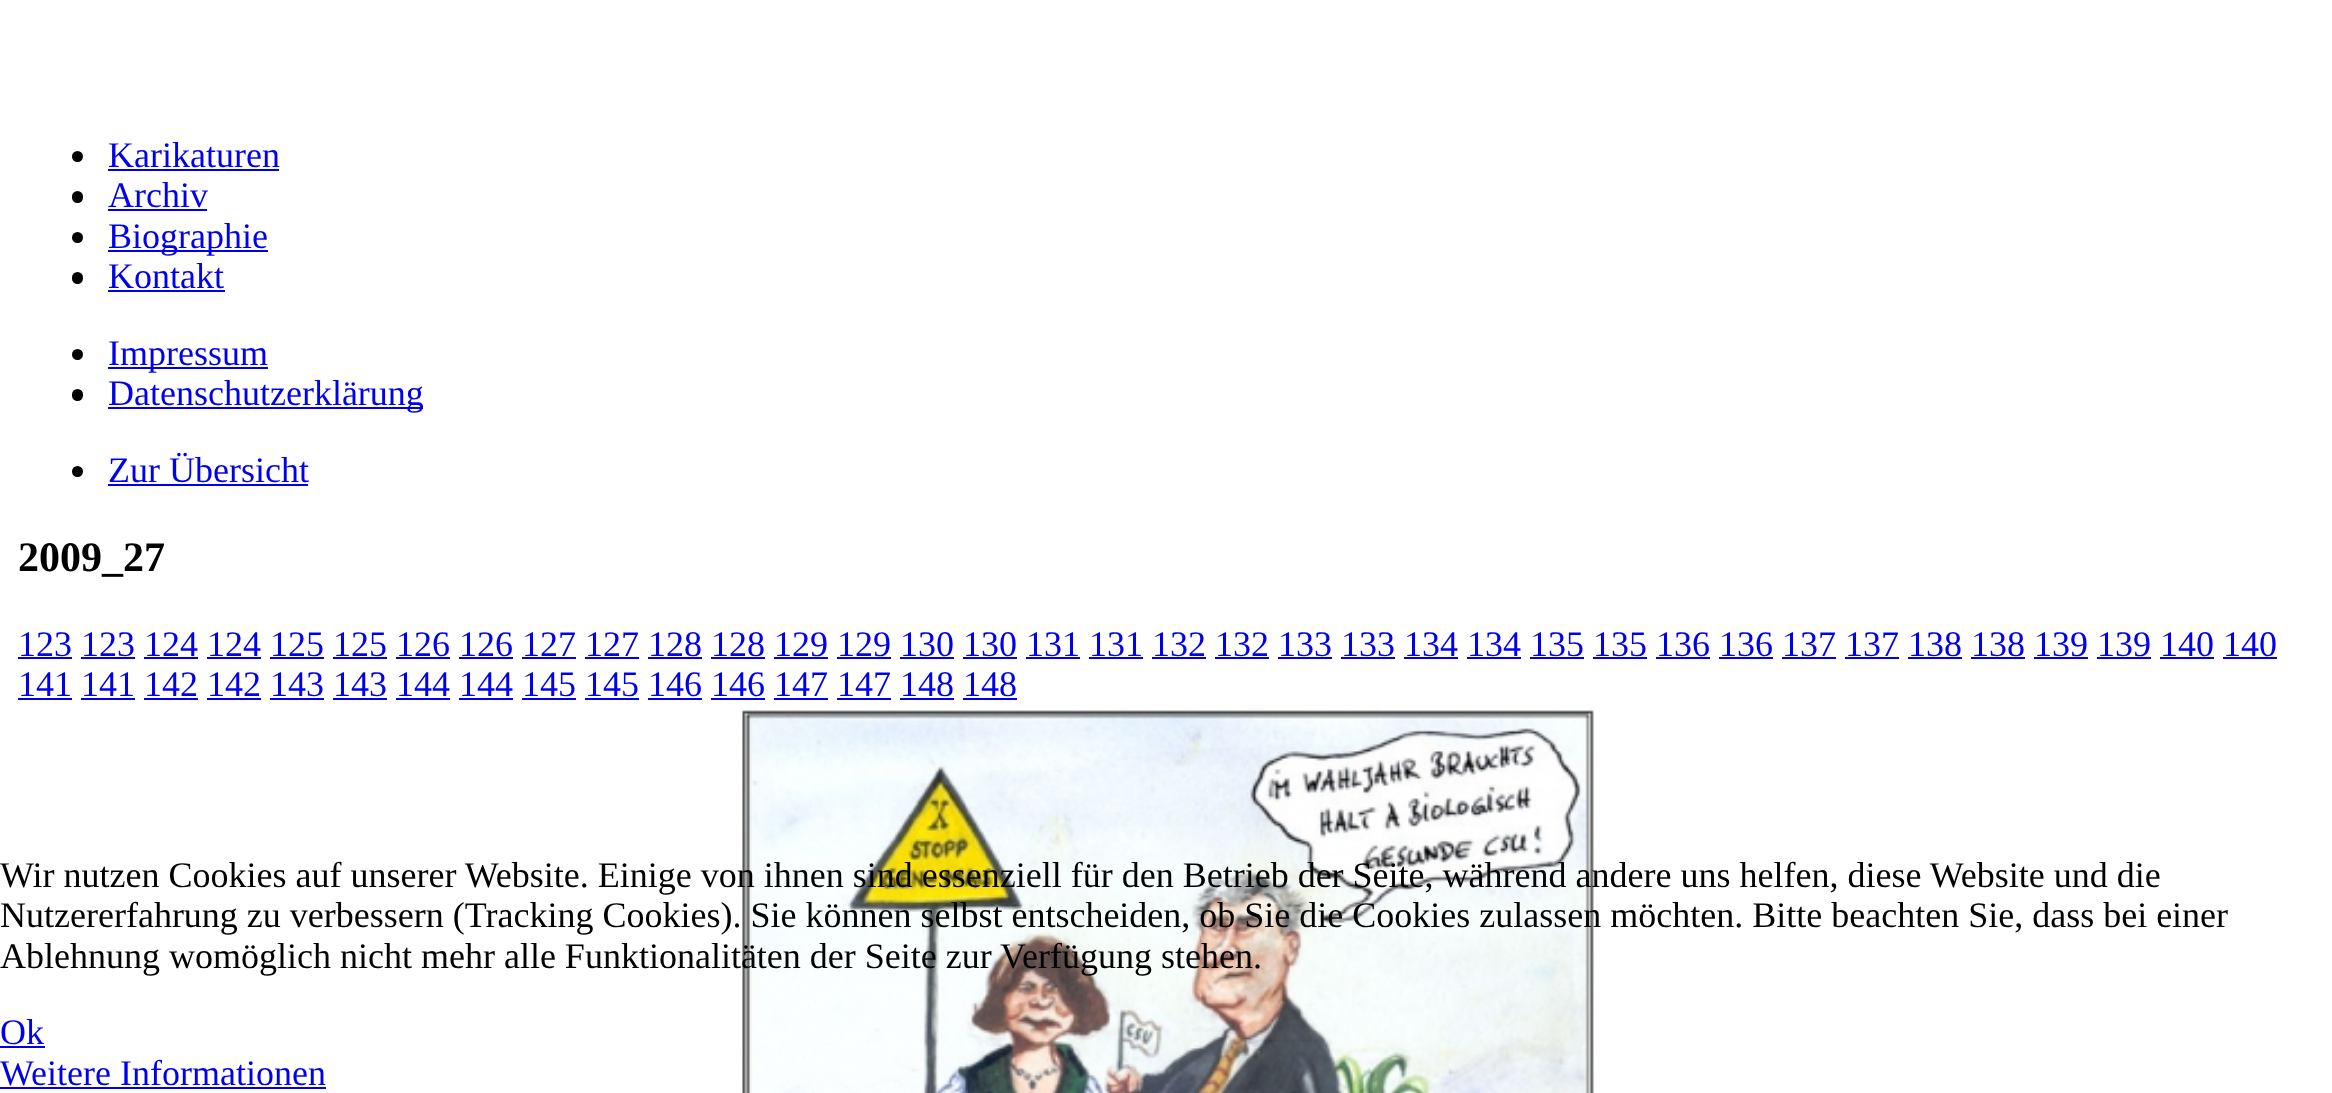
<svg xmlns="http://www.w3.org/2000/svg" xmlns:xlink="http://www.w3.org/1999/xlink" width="2332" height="1093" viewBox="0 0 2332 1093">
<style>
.cls-1{font:36px Liberation Serif;fill:#0000ee}
.cls-2{font:bold 42px Liberation Serif;fill:#000000}
.cls-3{font:36px Liberation Serif;fill:#000000}
</style>
<rect width="100%" height="100%" fill="#ffffff"/>
<circle fill="#000000" cx="77.5" cy="156.5" r="5.5"/>
<rect fill="#0000ee" x="108" y="169" width="171" height="2"/>
<rect fill="#000000" x="72" y="191" width="11" height="12" rx="5.5"/>
<rect fill="#0000ee" x="108" y="209" width="99" height="2"/>
<circle fill="#000000" cx="77.5" cy="237.5" r="5.5"/>
<rect fill="#0000ee" x="108" y="250" width="160" height="2"/>
<rect fill="#000000" x="72" y="272" width="11" height="12" rx="5.5"/>
<rect fill="#0000ee" x="108" y="290" width="117" height="2"/>
<circle fill="#000000" cx="77.5" cy="354.5" r="5.5"/>
<rect fill="#0000ee" x="108" y="367" width="160" height="2"/>
<rect fill="#000000" x="72" y="389" width="11" height="12" rx="5.5"/>
<rect fill="#0000ee" x="108" y="407" width="315" height="2"/>
<circle fill="#000000" cx="77.5" cy="471.5" r="5.5"/>
<rect fill="#0000ee" x="108" y="484" width="200" height="2"/>
<rect fill="#0000ee" x="18" y="657" width="54" height="2"/>
<rect fill="#0000ee" x="81" y="657" width="54" height="2"/>
<rect fill="#0000ee" x="144" y="657" width="54" height="2"/>
<rect fill="#0000ee" x="207" y="657" width="54" height="2"/>
<rect fill="#0000ee" x="270" y="657" width="54" height="2"/>
<rect fill="#0000ee" x="333" y="657" width="54" height="2"/>
<rect fill="#0000ee" x="396" y="657" width="54" height="2"/>
<rect fill="#0000ee" x="459" y="657" width="54" height="2"/>
<rect fill="#0000ee" x="522" y="657" width="54" height="2"/>
<rect fill="#0000ee" x="585" y="657" width="54" height="2"/>
<rect fill="#0000ee" x="648" y="657" width="54" height="2"/>
<rect fill="#0000ee" x="711" y="657" width="54" height="2"/>
<rect fill="#0000ee" x="774" y="657" width="54" height="2"/>
<rect fill="#0000ee" x="837" y="657" width="54" height="2"/>
<rect fill="#0000ee" x="900" y="657" width="54" height="2"/>
<rect fill="#0000ee" x="963" y="657" width="54" height="2"/>
<rect fill="#0000ee" x="1026" y="657" width="54" height="2"/>
<rect fill="#0000ee" x="1089" y="657" width="54" height="2"/>
<rect fill="#0000ee" x="1152" y="657" width="54" height="2"/>
<rect fill="#0000ee" x="1215" y="657" width="54" height="2"/>
<rect fill="#0000ee" x="1278" y="657" width="54" height="2"/>
<rect fill="#0000ee" x="1341" y="657" width="54" height="2"/>
<rect fill="#0000ee" x="1404" y="657" width="54" height="2"/>
<rect fill="#0000ee" x="1467" y="657" width="54" height="2"/>
<rect fill="#0000ee" x="1530" y="657" width="54" height="2"/>
<rect fill="#0000ee" x="1593" y="657" width="54" height="2"/>
<rect fill="#0000ee" x="1656" y="657" width="54" height="2"/>
<rect fill="#0000ee" x="1719" y="657" width="54" height="2"/>
<rect fill="#0000ee" x="1782" y="657" width="54" height="2"/>
<rect fill="#0000ee" x="1845" y="657" width="54" height="2"/>
<rect fill="#0000ee" x="1908" y="657" width="54" height="2"/>
<rect fill="#0000ee" x="1971" y="657" width="54" height="2"/>
<rect fill="#0000ee" x="2034" y="657" width="54" height="2"/>
<rect fill="#0000ee" x="2097" y="657" width="54" height="2"/>
<rect fill="#0000ee" x="2160" y="657" width="54" height="2"/>
<rect fill="#0000ee" x="2223" y="657" width="54" height="2"/>
<rect fill="#0000ee" x="18" y="698" width="54" height="2"/>
<rect fill="#0000ee" x="81" y="698" width="54" height="2"/>
<rect fill="#0000ee" x="144" y="698" width="54" height="2"/>
<rect fill="#0000ee" x="207" y="698" width="54" height="2"/>
<rect fill="#0000ee" x="270" y="698" width="54" height="2"/>
<rect fill="#0000ee" x="333" y="698" width="54" height="2"/>
<rect fill="#0000ee" x="396" y="698" width="54" height="2"/>
<rect fill="#0000ee" x="459" y="698" width="54" height="2"/>
<rect fill="#0000ee" x="522" y="698" width="54" height="2"/>
<rect fill="#0000ee" x="585" y="698" width="54" height="2"/>
<rect fill="#0000ee" x="648" y="698" width="54" height="2"/>
<rect fill="#0000ee" x="711" y="698" width="54" height="2"/>
<rect fill="#0000ee" x="774" y="698" width="54" height="2"/>
<rect fill="#0000ee" x="837" y="698" width="54" height="2"/>
<rect fill="#0000ee" x="900" y="698" width="54" height="2"/>
<rect fill="#0000ee" x="963" y="698" width="54" height="2"/>
<image xlink:href="image0.png" x="740" y="705" width="854" height="388"/>
<rect fill="#0000ee" x="0" y="1046" width="45" height="2"/>
<rect fill="#0000ee" x="0" y="1087" width="326" height="2"/>
<text class="cls-1"><tspan x="108" y="167">Karikaturen</tspan><tspan x="108" y="207">Archiv</tspan><tspan x="108" y="248">Biographie</tspan><tspan x="108" y="288">Kontakt</tspan></text>
<text class="cls-1"><tspan x="108" y="365">Impressum</tspan><tspan x="108" y="405">Datenschutzerklärung</tspan></text>
<text class="cls-1" x="108" y="482">Zur Übersicht</text>
<text class="cls-2" x="18" y="571">2009_27</text>
<text class="cls-1"><tspan x="18" y="656">123 123 124 124 125 125 126 126 127 127 128 128 129 129 130 130 131 131 132 132 133 133 134 134 135 135 136 136 137 137 138 138 139 139 140 140</tspan><tspan x="18" y="696">141 141 142 142 143 143 144 144 145 145 146 146 147 147 148 148</tspan></text>
<text class="cls-3"><tspan x="0" y="887">Wir nutzen Cookies auf unserer Website. Einige von ihnen sind essenziell für den Betrieb der Seite, während andere uns helfen, diese Website und die</tspan><tspan x="0" y="927">Nutzererfahrung zu verbessern (Tracking Cookies). Sie können selbst entscheiden, ob Sie die Cookies zulassen möchten. Bitte beachten Sie, dass bei einer</tspan><tspan x="0" y="968">Ablehnung womöglich nicht mehr alle Funktionalitäten der Seite zur Verfügung stehen.</tspan></text>
<text class="cls-1"><tspan x="0" y="1044">Ok</tspan><tspan x="0" y="1085">Weitere Informationen</tspan></text>
</svg>
